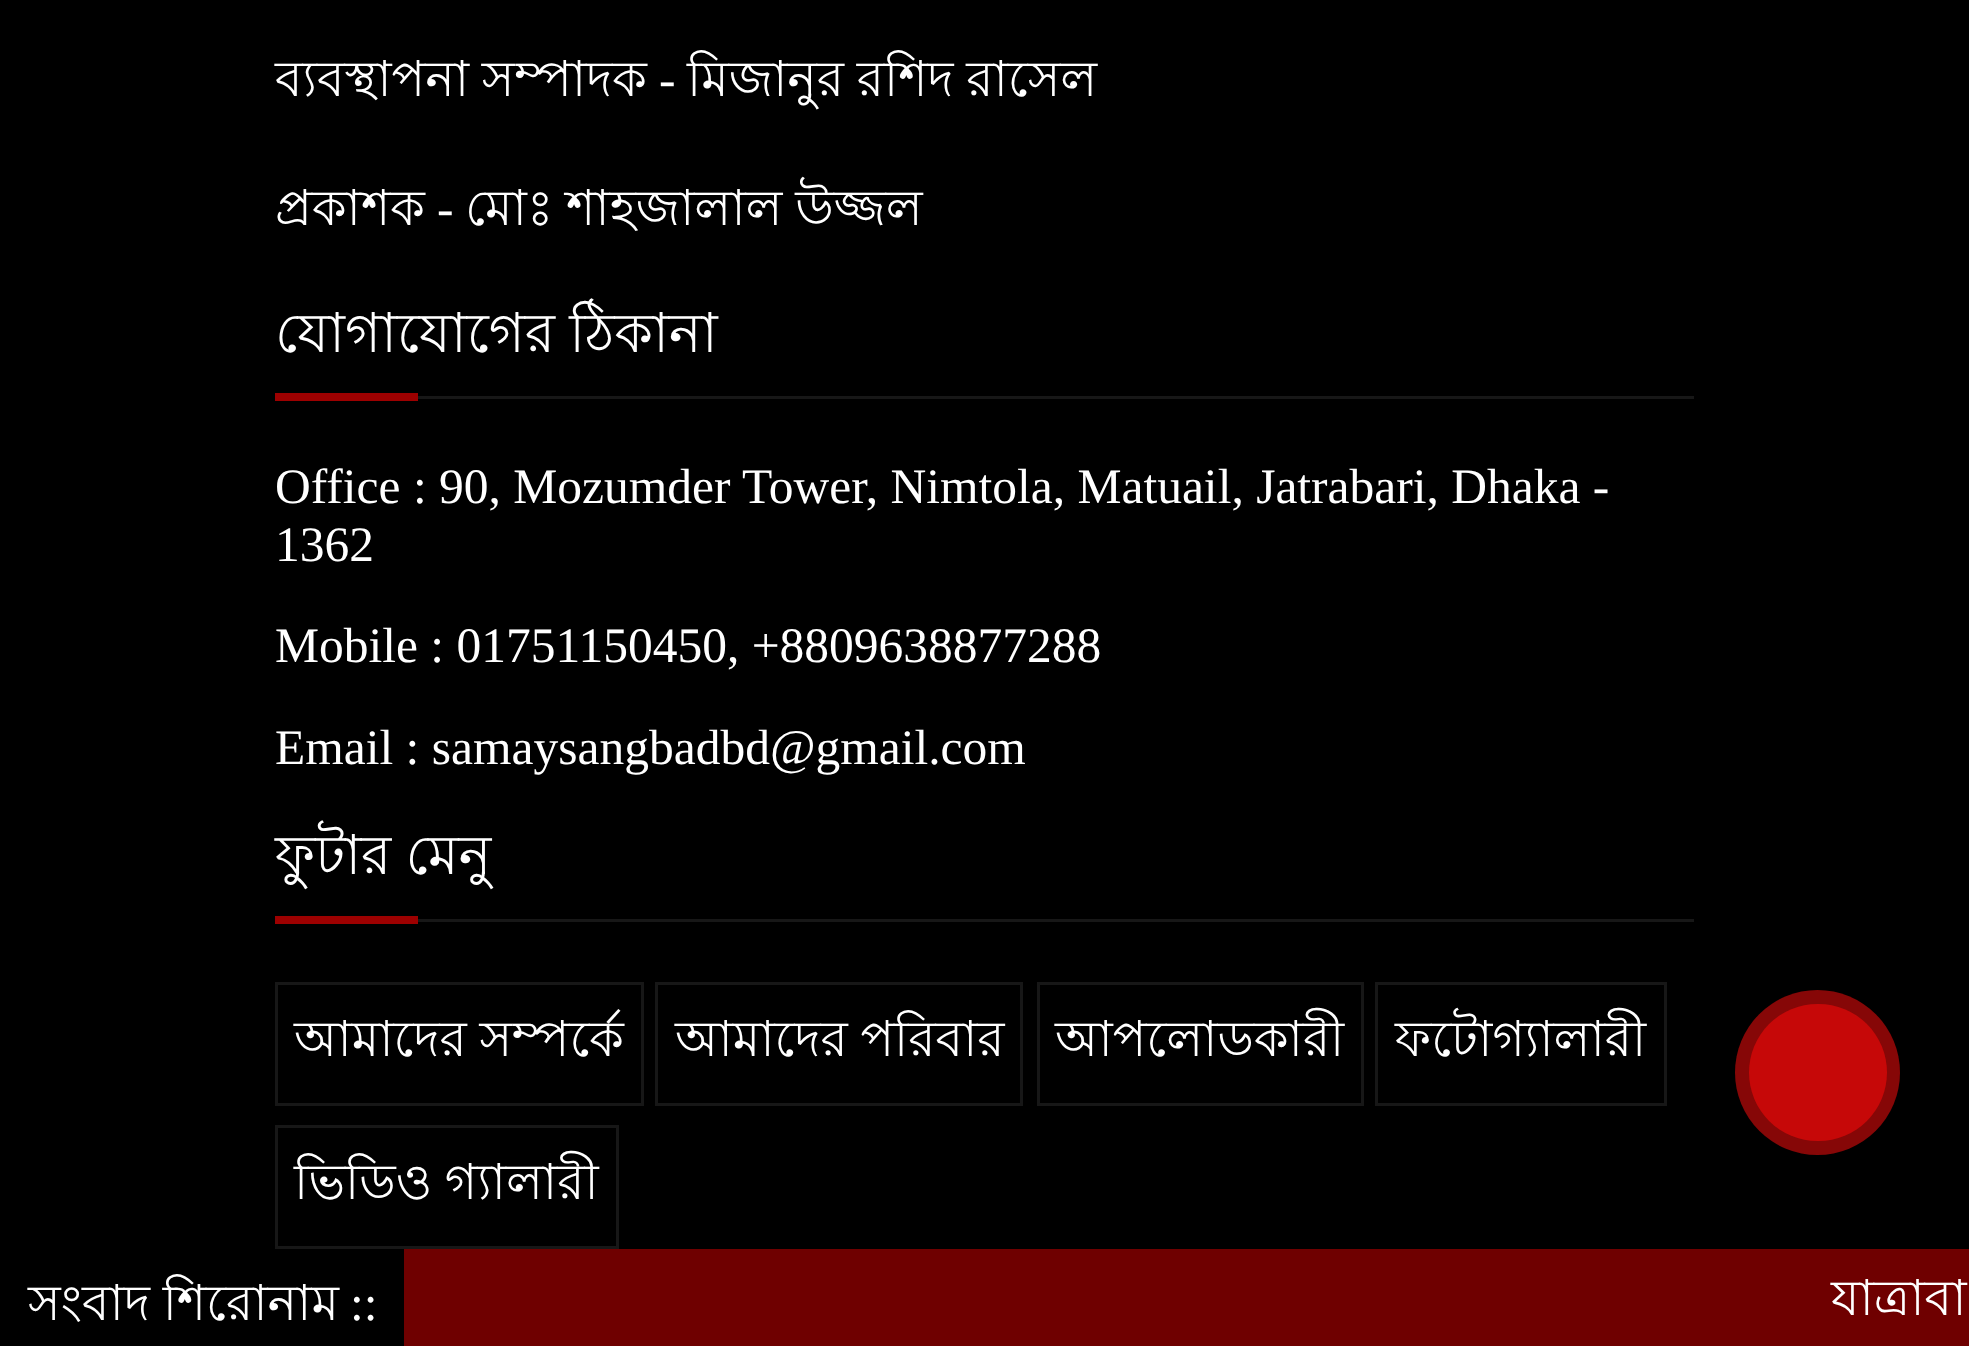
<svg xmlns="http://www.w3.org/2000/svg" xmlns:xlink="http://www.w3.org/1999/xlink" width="1969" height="1346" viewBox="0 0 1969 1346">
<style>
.cls-1{font:49.5px Lohit Bengali;fill:#ffffff}
.cls-2{font:49.5px Liberation Serif;fill:#ffffff}
.cls-3{font:55px Lohit Bengali;fill:#ffffff}
</style>
<rect width="100%" height="100%" fill="#000000"/>
<rect fill="#171717" x="418" y="396" width="1276" height="3"/>
<rect fill="#9d0000" x="275" y="393" width="143" height="8"/>
<rect fill="#171717" x="418" y="919" width="1276" height="3"/>
<rect fill="#9d0000" x="275" y="916" width="143" height="8"/>
<rect fill="none" stroke="#171717" stroke-width="3" x="276.5" y="983.5" width="366" height="121"/>
<rect fill="none" stroke="#171717" stroke-width="3" x="656.5" y="983.5" width="365" height="121"/>
<rect fill="none" stroke="#171717" stroke-width="3" x="1038.5" y="983.5" width="324" height="121"/>
<rect fill="none" stroke="#171717" stroke-width="3" x="1376.5" y="983.5" width="289" height="121"/>
<rect fill="none" stroke="#171717" stroke-width="3" x="276.5" y="1126.5" width="341" height="121"/>
<circle fill="#860707" cx="1817.5" cy="1072.5" r="82.5"/>
<rect fill="#c60808" x="1749" y="1004" width="138" height="137" rx="68.5"/>
<rect fill="#6f0000" x="404" y="1249" width="1565" height="97"/>
<text class="cls-1" x="275" y="96" word-spacing="-1">ব্যবস্থাপনা সম্পাদক</text>
<text class="cls-2" x="659" y="96">-</text>
<text class="cls-1" x="687" y="96" word-spacing="-1">মিজানুর রশিদ রাসেল</text>
<text class="cls-1" x="275" y="225">প্রকাশক</text>
<text class="cls-2" x="437" y="225">-</text>
<text class="cls-1" x="465" y="225" word-spacing="-1">মোঃ শাহজালাল উজ্জল</text>
<text class="cls-3" x="275" y="352" word-spacing="-1">যোগাযোগের ঠিকানা</text>
<text class="cls-2"><tspan x="275" y="503">Office : 90, Mozumder Tower, Nimtola, Matuail, Jatrabari, Dhaka -</tspan><tspan x="275" y="561">1362</tspan></text>
<text class="cls-2" x="275" y="662">Mobile : 01751150450, +8809638877288</text>
<text class="cls-2" x="275" y="764">Email : samaysangbadbd@gmail.com</text>
<text class="cls-3" x="275" y="874" word-spacing="-1">ফুটার মেনু</text>
<text class="cls-1" x="294" y="1056" word-spacing="-1">আমাদের সম্পর্কে</text>
<text class="cls-1" x="675" y="1056" word-spacing="-1">আমাদের পরিবার</text>
<text class="cls-1" x="1055" y="1056">আপলোডকারী</text>
<text class="cls-1" x="1395" y="1056">ফটোগ্যালারী</text>
<text class="cls-1" x="294" y="1199" word-spacing="-1">ভিডিও গ্যালারী</text>
<text class="cls-1" x="28" y="1320" word-spacing="-1">সংবাদ শিরোনাম</text>
<text class="cls-2" x="350" y="1320">::</text>
<text class="cls-1" x="1831" y="1315" word-spacing="-1">যাত্রাবা</text>
</svg>
